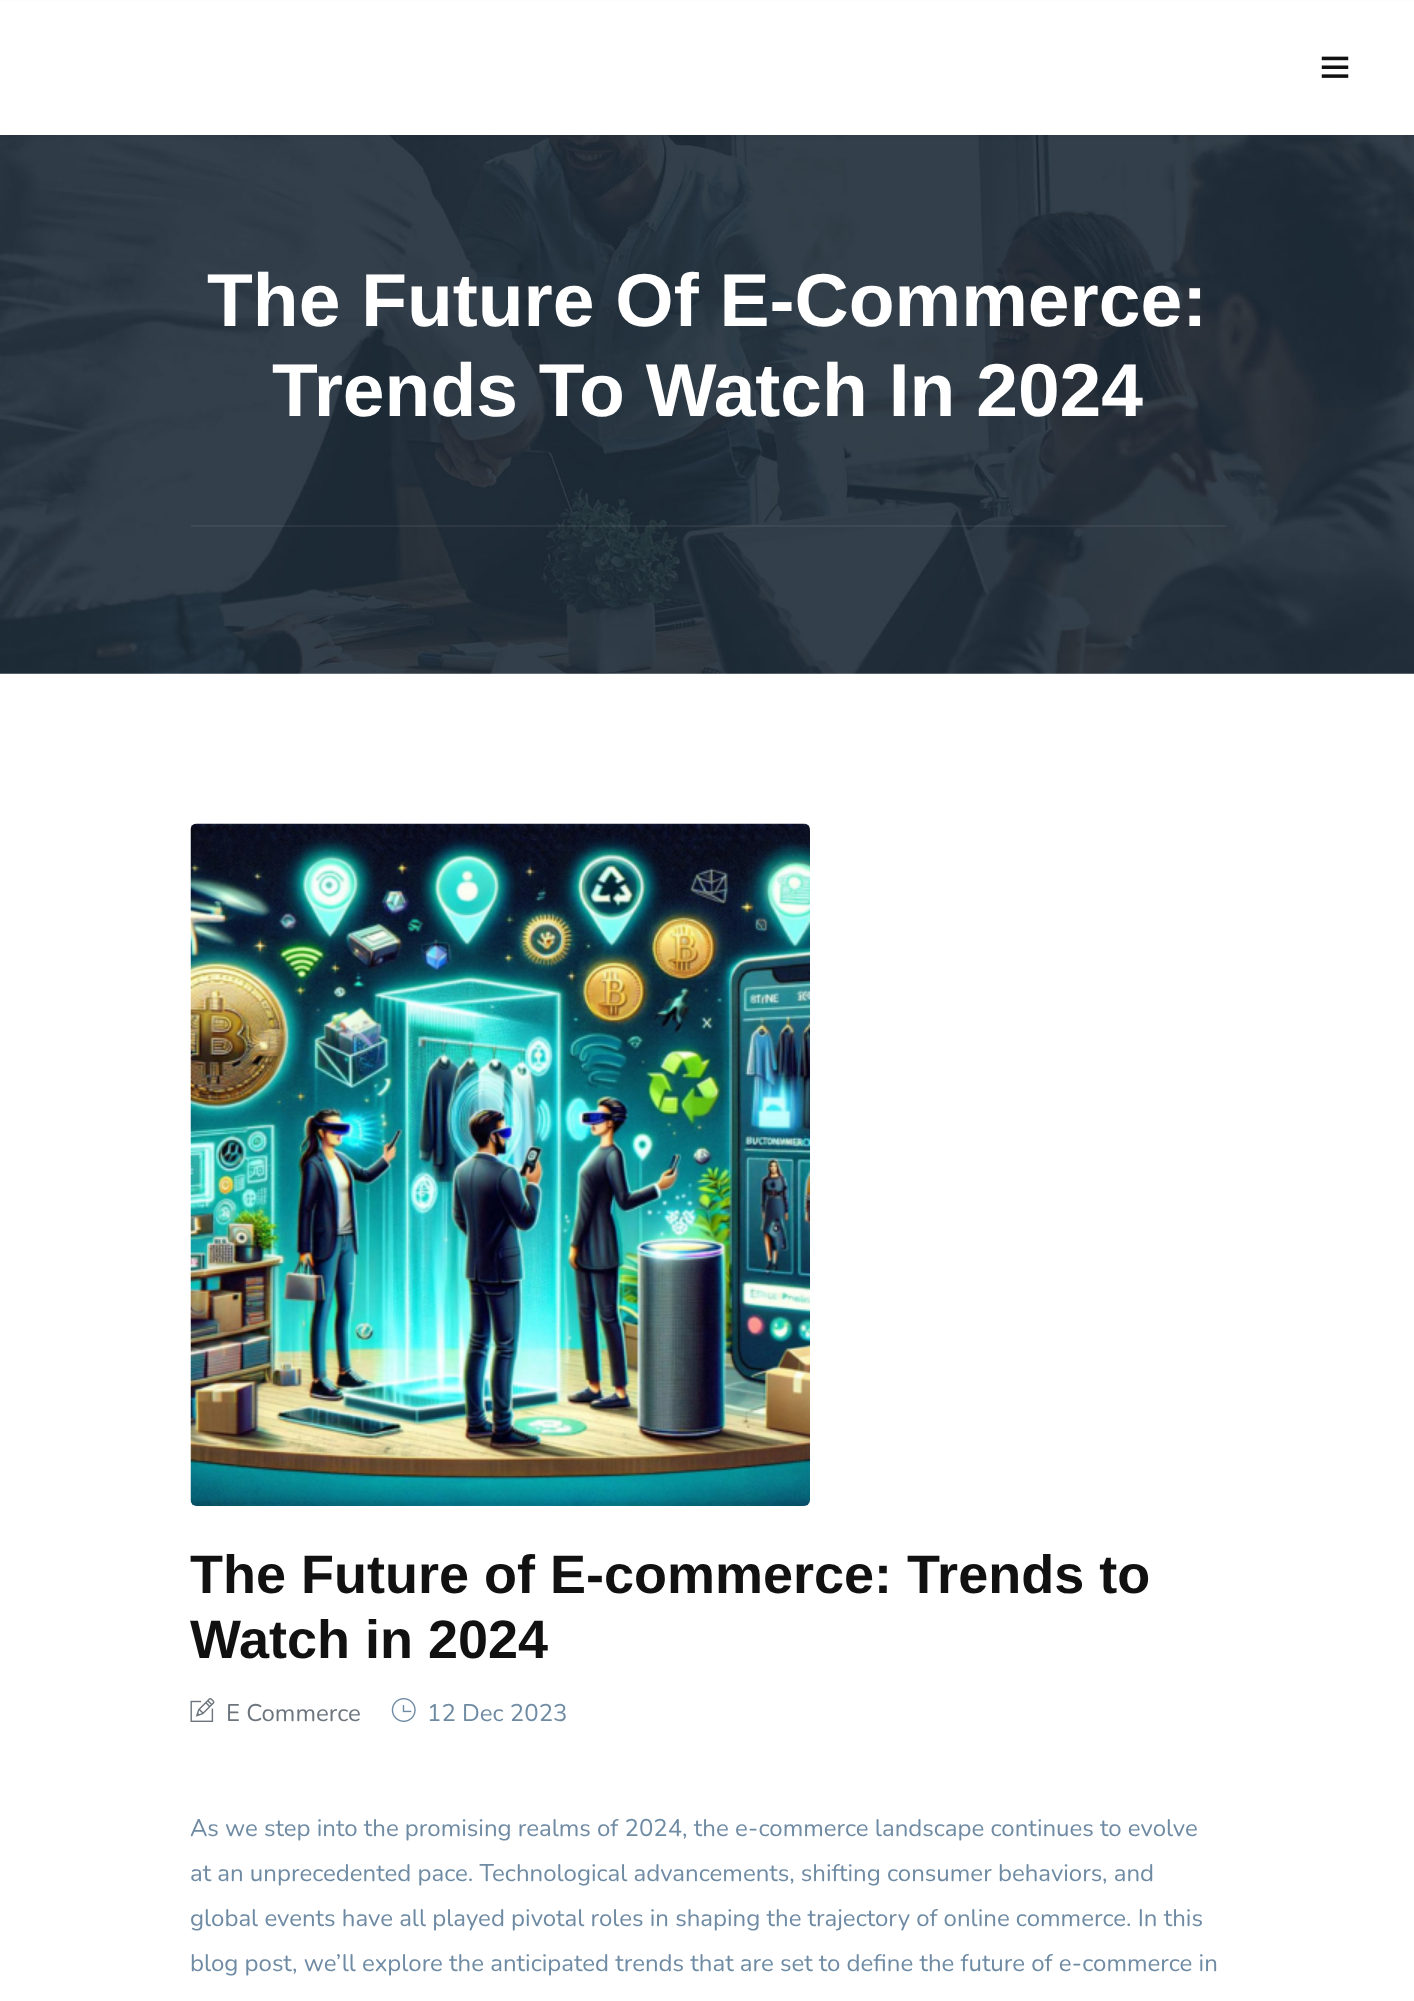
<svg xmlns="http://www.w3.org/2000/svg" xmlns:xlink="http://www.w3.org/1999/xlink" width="1414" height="2001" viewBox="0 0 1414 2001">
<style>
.cls-1{font:bold 75px Liberation Sans;fill:#ffffff}
.cls-2{font:bold 54px Liberation Sans;fill:#111111}
.cls-3{font:24px Nunito;fill:#6c757d}
.cls-4{font:24px Nunito;fill:#6f8ba4}
</style>
<rect width="100%" height="100%" fill="#ffffff"/>
<image xlink:href="image1.png" x="0" y="135" width="1414" height="539"/>
<rect fill="#000000" fill-opacity="0.05" filter="blur(1.5px)" x="0" y="2" width="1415" height="135"/>
<rect fill="#ffffff" x="0" y="1" width="1414" height="134"/>
<image xlink:href="image0.png" x="1321" y="56" width="28" height="22"/>
<rect fill="#ffffff" fill-opacity="0.06" x="191" y="525" width="1035" height="2"/>
<image xlink:href="image2.png" x="190" y="823" width="620" height="683"/>
<image xlink:href="image3.png" x="190" y="1698" width="25" height="24"/>
<image xlink:href="image4.png" x="391" y="1698" width="25" height="24"/>
<text class="cls-1" x="207" y="326">The Future Of E-Commerce:</text>
<text class="cls-1" x="272" y="416">Trends To Watch In 2024</text>
<text class="cls-2"><tspan x="190" y="1593">The Future of E-commerce: Trends to</tspan><tspan x="190" y="1658">Watch in 2024</tspan></text>
<text class="cls-3" x="226" y="1721">E Commerce</text>
<text class="cls-4" x="427" y="1721">12 Dec 2023</text>
<text class="cls-4"><tspan x="190" y="1836">As we step into the promising realms of 2024, the e-commerce landscape continues to evolve</tspan><tspan x="190" y="1881">at an unprecedented pace. Technological advancements, shifting consumer behaviors, and</tspan><tspan x="190" y="1926">global events have all played pivotal roles in shaping the trajectory of online commerce. In this</tspan><tspan x="190" y="1971">blog post, we’ll explore the anticipated trends that are set to define the future of e-commerce in</tspan></text>
</svg>
